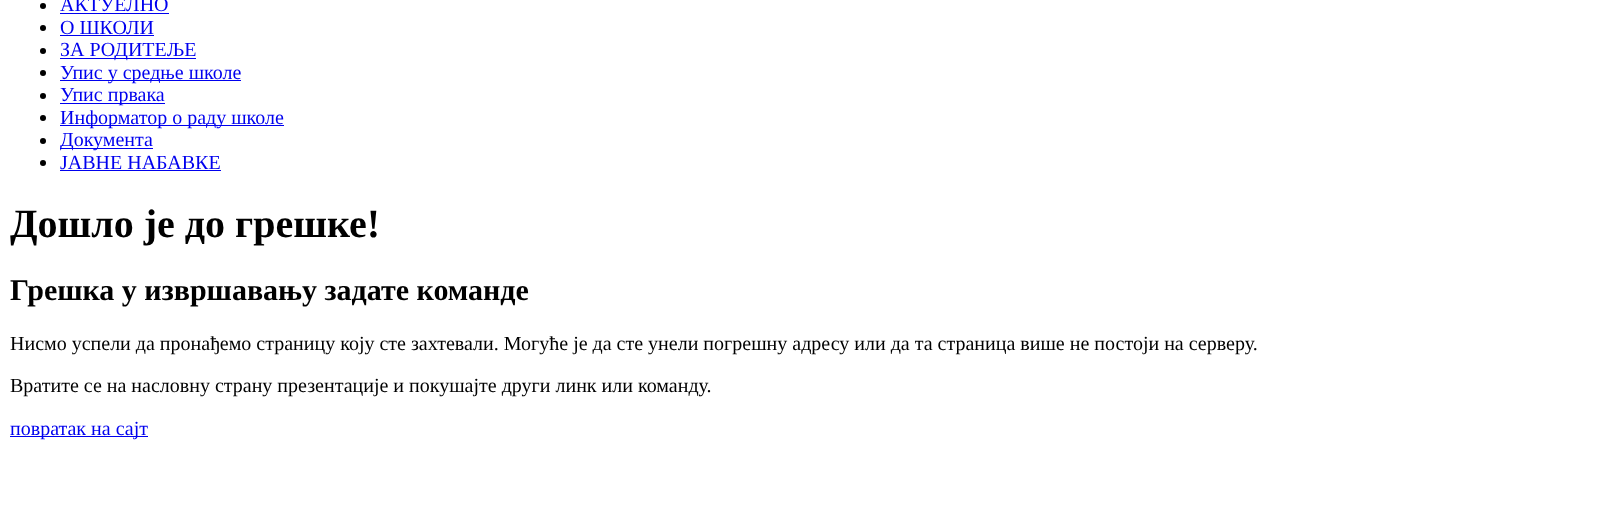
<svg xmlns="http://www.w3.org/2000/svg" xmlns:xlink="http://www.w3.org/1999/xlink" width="1611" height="520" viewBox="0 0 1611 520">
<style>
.cls-1{font:20px Liberation Serif;fill:#0000ee}
.cls-2{font:bold 40px Liberation Serif;fill:#000000}
.cls-3{font:bold 30px Liberation Serif;fill:#000000}
.cls-4{font:20px Liberation Serif;fill:#000000}
</style>
<rect width="100%" height="100%" fill="#ffffff"/>
<circle fill="#000000" cx="43" cy="6" r="3"/>
<rect fill="#0000ee" x="60" y="13" width="109" height="1"/>
<circle fill="#000000" cx="43" cy="28" r="3"/>
<rect fill="#0000ee" x="60" y="35" width="94" height="1"/>
<circle fill="#000000" cx="43" cy="51" r="3"/>
<rect fill="#0000ee" x="60" y="58" width="136" height="1"/>
<circle fill="#000000" cx="43" cy="73" r="3"/>
<rect fill="#0000ee" x="60" y="80" width="181" height="1"/>
<circle fill="#000000" cx="43" cy="96" r="3"/>
<rect fill="#0000ee" x="60" y="103" width="105" height="1"/>
<circle fill="#000000" cx="43" cy="118" r="3"/>
<rect fill="#0000ee" x="60" y="125" width="224" height="1"/>
<circle fill="#000000" cx="43" cy="141" r="3"/>
<rect fill="#0000ee" x="60" y="148" width="93" height="1"/>
<circle fill="#000000" cx="43" cy="163" r="3"/>
<rect fill="#0000ee" x="60" y="170" width="161" height="1"/>
<rect fill="#0000ee" x="10" y="436" width="138" height="1"/>
<text class="cls-1"><tspan x="60" y="11">АКТУЕЛНО</tspan><tspan x="60" y="34">О ШКОЛИ</tspan><tspan x="60" y="56">ЗА РОДИТЕЉЕ</tspan><tspan x="60" y="79">Упис у средње школе</tspan><tspan x="60" y="101">Упис првака</tspan><tspan x="60" y="124">Информатор о раду школе</tspan><tspan x="60" y="146">Документа</tspan><tspan x="60" y="169">ЈАВНЕ НАБАВКЕ</tspan></text>
<text class="cls-2" x="10" y="237">Дошло је до грешке!</text>
<text class="cls-3" x="10" y="300">Грешка у извршавању задате команде</text>
<text class="cls-4" x="10" y="350">Нисмо успели да пронађемо страницу коју сте захтевали. Могуће је да сте унели погрешну адресу или да та страница више не постоји на серверу.</text>
<text class="cls-4" x="10" y="392">Вратите се на насловну страну презентације и покушајте други линк или команду.</text>
<text class="cls-1" x="10" y="435">повратак на сајт</text>
</svg>
